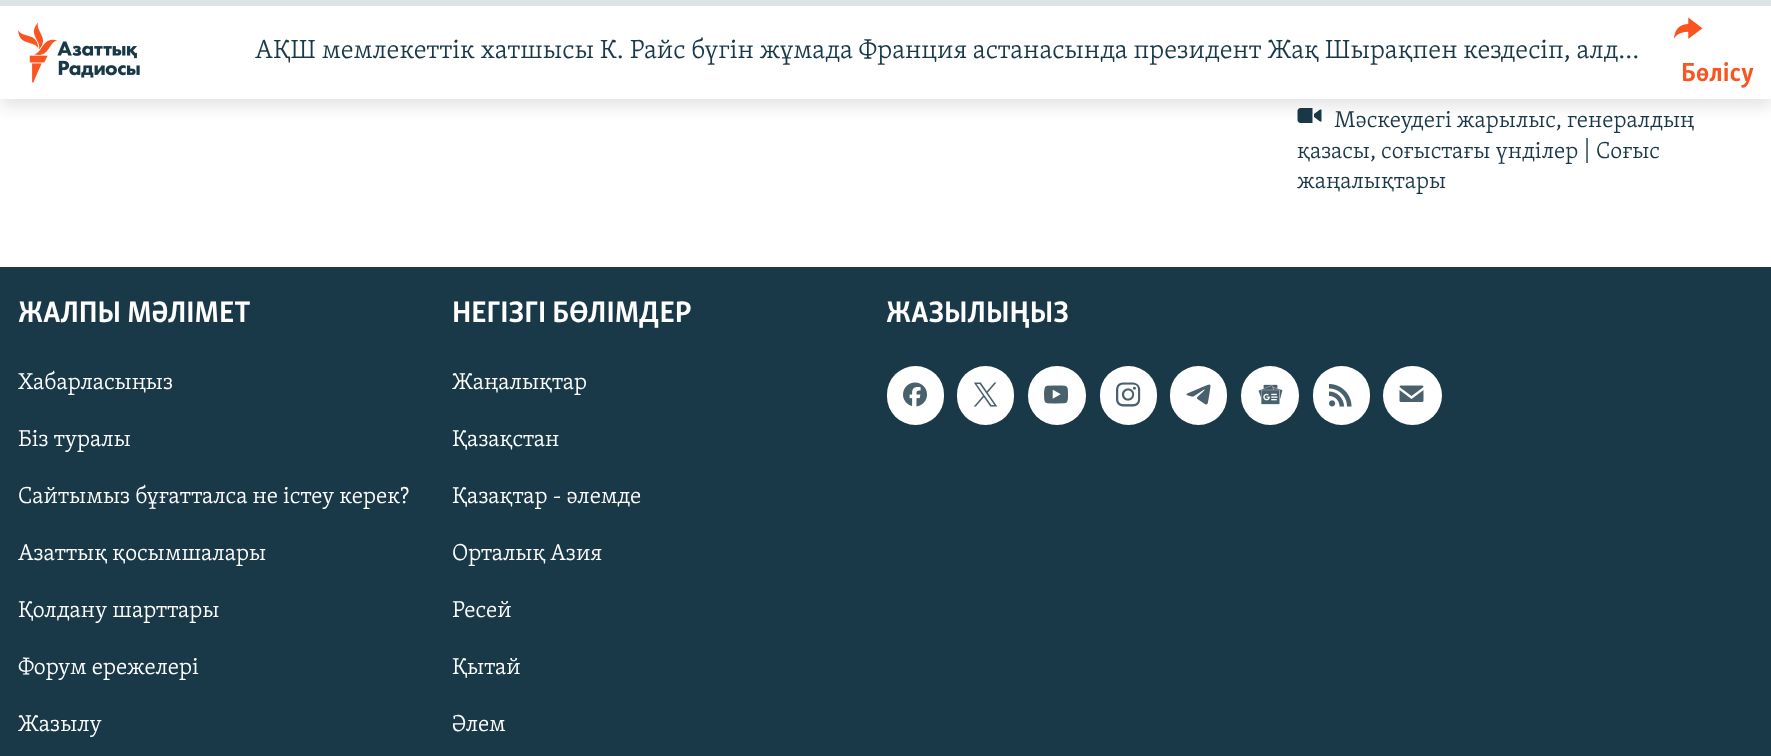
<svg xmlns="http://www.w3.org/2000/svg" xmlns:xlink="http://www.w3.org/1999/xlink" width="1771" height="756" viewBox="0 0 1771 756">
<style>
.cls-1{font:300 27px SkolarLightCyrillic;fill:#1a3948}
.cls-2{font:bold 27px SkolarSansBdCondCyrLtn;fill:#fa5420}
.cls-3{font:300 23.6px SkolarLightCyrillic;fill:#1a3948}
.cls-4{font:bold 30.5px SkolarSansBdCondCyrLtn;fill:#ffffff}
.cls-5{font:300 23.6px SkolarLightCyrillic;fill:#ffffff}
</style>
<rect width="100%" height="100%" fill="#ffffff"/>
<image xlink:href="image2.png" x="1297" y="108" width="25" height="15"/>
<rect fill="#000000" fill-opacity="0.1" filter="blur(7.5px)" x="0" y="8" width="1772" height="99"/>
<rect fill="#ffffff" x="0" y="6" width="1771" height="93"/>
<rect fill="#dce4e8" x="0" y="0" width="1771" height="6"/>
<image xlink:href="image0.png" x="18" y="23" width="122" height="60"/>
<image xlink:href="image1.png" x="1674" y="17" width="29" height="22"/>
<rect fill="#1a3948" x="0" y="267" width="1771" height="489"/>
<rect fill="#ffffff" x="887" y="366" width="57" height="59" rx="28.5"/>
<image xlink:href="image3.png" x="903" y="382" width="24" height="25"/>
<rect fill="#ffffff" x="957" y="366" width="57" height="59" rx="28.5"/>
<image xlink:href="image4.png" x="973" y="382" width="25" height="25"/>
<rect fill="#ffffff" x="1028" y="366" width="58" height="59" rx="29"/>
<image xlink:href="image5.png" x="1044" y="385" width="24" height="19"/>
<rect fill="#ffffff" x="1100" y="366" width="57" height="59" rx="28.5"/>
<image xlink:href="image6.png" x="1116" y="382" width="25" height="25"/>
<rect fill="#ffffff" x="1170" y="366" width="57" height="59" rx="28.5"/>
<image xlink:href="image7.png" x="1186" y="384" width="25" height="21"/>
<rect fill="#ffffff" x="1241" y="366" width="58" height="59" rx="29"/>
<image xlink:href="image8.png" x="1258" y="384" width="25" height="21"/>
<rect fill="#ffffff" x="1313" y="366" width="57" height="59" rx="28.5"/>
<image xlink:href="image9.png" x="1329" y="384" width="23" height="23"/>
<circle fill="#ffffff" cx="1412.5" cy="395.5" r="29.5"/>
<image xlink:href="image10.png" x="1399" y="385" width="25" height="17"/>
<text class="cls-1" x="255" y="58">АҚШ мемлекеттік хатшысы К. Райс бүгін жұмада Франция астанасында президент Жақ Шырақпен кездесіп, алд…</text>
<text class="cls-2" x="1681" y="81">Бөлісу</text>
<text class="cls-3" x="1334" y="127">Мәскеудегі жарылыс, генералдың</text>
<text class="cls-3"><tspan x="1297" y="158">қазасы, соғыстағы үнділер | Соғыс</tspan><tspan x="1297" y="188">жаңалықтары</tspan></text>
<text class="cls-4" x="18" y="322">ЖАЛПЫ МӘЛІМЕТ</text>
<text class="cls-5" x="18" y="389">Хабарласыңыз</text>
<text class="cls-5" x="18" y="446">Біз туралы</text>
<text class="cls-5" x="18" y="503">Сайтымыз бұғатталса не істеу керек?</text>
<text class="cls-5" x="18" y="560">Азаттық қосымшалары</text>
<text class="cls-5" x="18" y="617">Қолдану шарттары</text>
<text class="cls-5" x="18" y="674">Форум ережелері</text>
<text class="cls-5" x="18" y="731">Жазылу</text>
<text class="cls-4" x="452" y="322">НЕГІЗГІ БӨЛІМДЕР</text>
<text class="cls-5" x="452" y="389">Жаңалықтар</text>
<text class="cls-5" x="452" y="446">Қазақстан</text>
<text class="cls-5" x="452" y="503">Қазақтар - әлемде</text>
<text class="cls-5" x="452" y="560">Орталық Азия</text>
<text class="cls-5" x="452" y="617">Ресей</text>
<text class="cls-5" x="452" y="674">Қытай</text>
<text class="cls-5" x="452" y="731">Әлем</text>
<text class="cls-4" x="886" y="322">ЖАЗЫЛЫҢЫЗ</text>
</svg>
